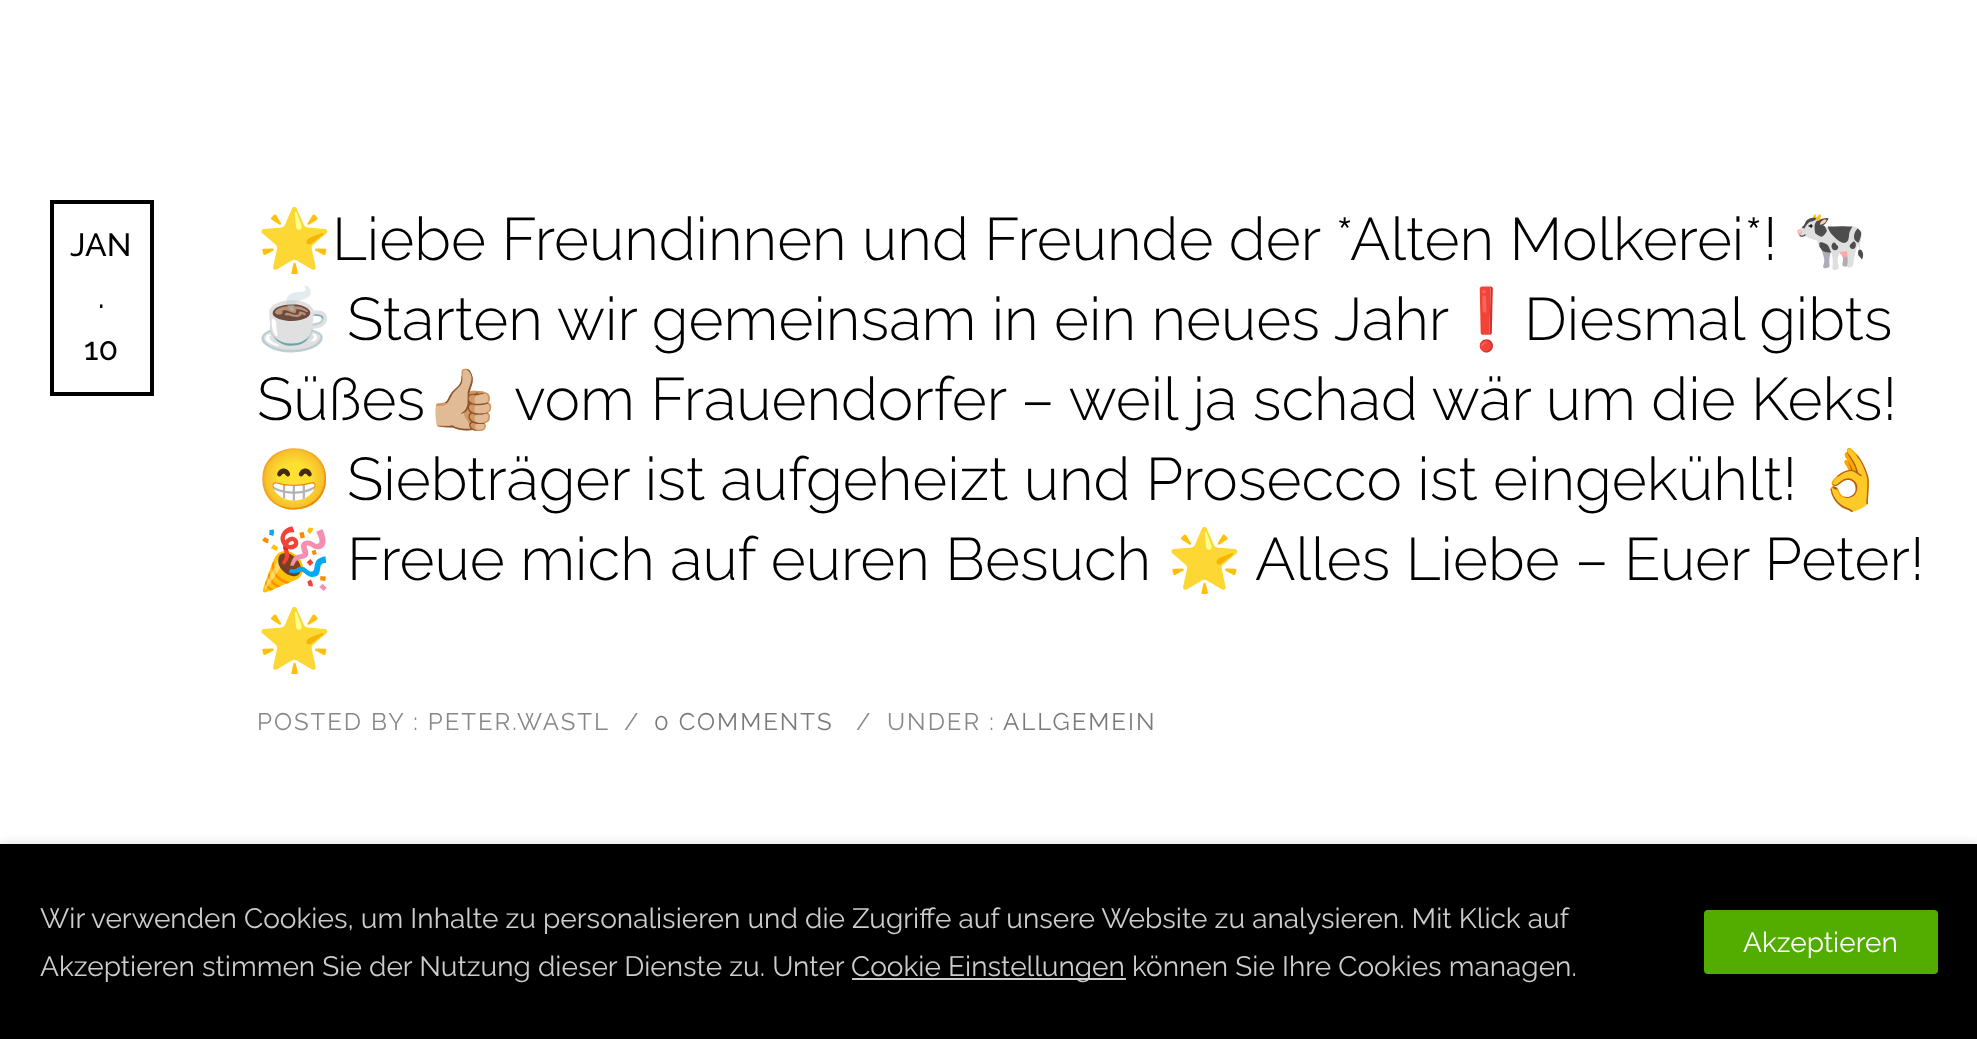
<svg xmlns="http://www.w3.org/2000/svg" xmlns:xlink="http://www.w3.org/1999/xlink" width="1977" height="1039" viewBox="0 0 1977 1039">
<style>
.cls-1{font:100 32px Raleway;fill:#000000}
.cls-2{font:60px Noto Color Emoji;fill:#000000}
.cls-3{font:100 60px 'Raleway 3';fill:#000000}
.cls-4{font:100 24px 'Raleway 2';letter-spacing:2px;fill:#888888}
.cls-5{font:100 24px 'Raleway 2';letter-spacing:2px;fill:#7a7a7a}
.cls-6{font:100 28px 'Raleway 2';fill:#cccccc}
.cls-7{font:100 28px 'Raleway 2';fill:#ffffff}
</style>
<rect width="100%" height="100%" fill="#ffffff"/>
<rect fill="none" stroke="#000000" stroke-width="4" x="52" y="202" width="100" height="192"/>
<rect fill="#0c0c0d" fill-opacity="0.1" filter="blur(4px)" x="0" y="842" width="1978" height="196"/>
<rect fill="#000000" x="0" y="844" width="1977" height="195"/>
<rect fill="#cccccc" x="852" y="978" width="274" height="2"/>
<rect fill="#52ad00" x="1704" y="910" width="234" height="64" rx="4"/>
<text class="cls-1" x="70" y="256">JAN</text>
<text class="cls-1" x="98" y="308">.</text>
<text class="cls-1" x="84" y="360">10</text>
<text class="cls-2" x="257" y="260">🌟</text>
<text class="cls-3" x="332" y="260">Liebe Freundinnen und Freunde der *Alten Molkerei*!</text>
<text class="cls-2" x="1793" y="260">🐄</text>
<text class="cls-2" x="257" y="340">☕️</text>
<text class="cls-3" x="347" y="340">Starten wir gemeinsam in ein neues Jahr</text>
<text class="cls-2" x="1449" y="340">❗️</text>
<text class="cls-3" x="1524" y="340">Diesmal gibts</text>
<text class="cls-3" x="257" y="420">Süßes</text>
<text class="cls-2" x="425" y="420">👍🏼</text>
<text class="cls-3" x="514" y="420">vom Frauendorfer – weil ja schad wär um die Keks!</text>
<text class="cls-2" x="257" y="500">😁</text>
<text class="cls-3" x="347" y="500">Siebträger ist aufgeheizt und Prosecco ist eingekühlt!</text>
<text class="cls-2" x="1813" y="500">👌</text>
<text class="cls-2" x="257" y="580">🎉</text>
<text class="cls-3" x="347" y="580">Freue mich auf euren Besuch</text>
<text class="cls-2" x="1167" y="580">🌟</text>
<text class="cls-3" x="1255" y="580">Alles Liebe – Euer Peter!</text>
<text class="cls-2" x="257" y="660">🌟</text>
<text class="cls-4" x="257" y="730">POSTED BY : PETER.WASTL</text>
<text class="cls-4" x="624" y="730">/</text>
<text class="cls-5" x="654" y="730">0 COMMENTS</text>
<text class="cls-4" x="856" y="730">/</text>
<text class="cls-4" x="887" y="730">UNDER :</text>
<text class="cls-5" x="1003" y="730">ALLGEMEIN</text>
<text class="cls-6"><tspan x="40" y="928">Wir verwenden Cookies, um Inhalte zu personalisieren und die Zugriffe auf unsere Website zu analysieren. Mit Klick auf</tspan><tspan x="40" y="976">Akzeptieren stimmen Sie der Nutzung dieser Dienste zu. Unter</tspan></text>
<text class="cls-6" x="851" y="976">Cookie Einstellungen können Sie Ihre Cookies managen.</text>
<text class="cls-7" x="1743" y="952">Akzeptieren</text>
</svg>
